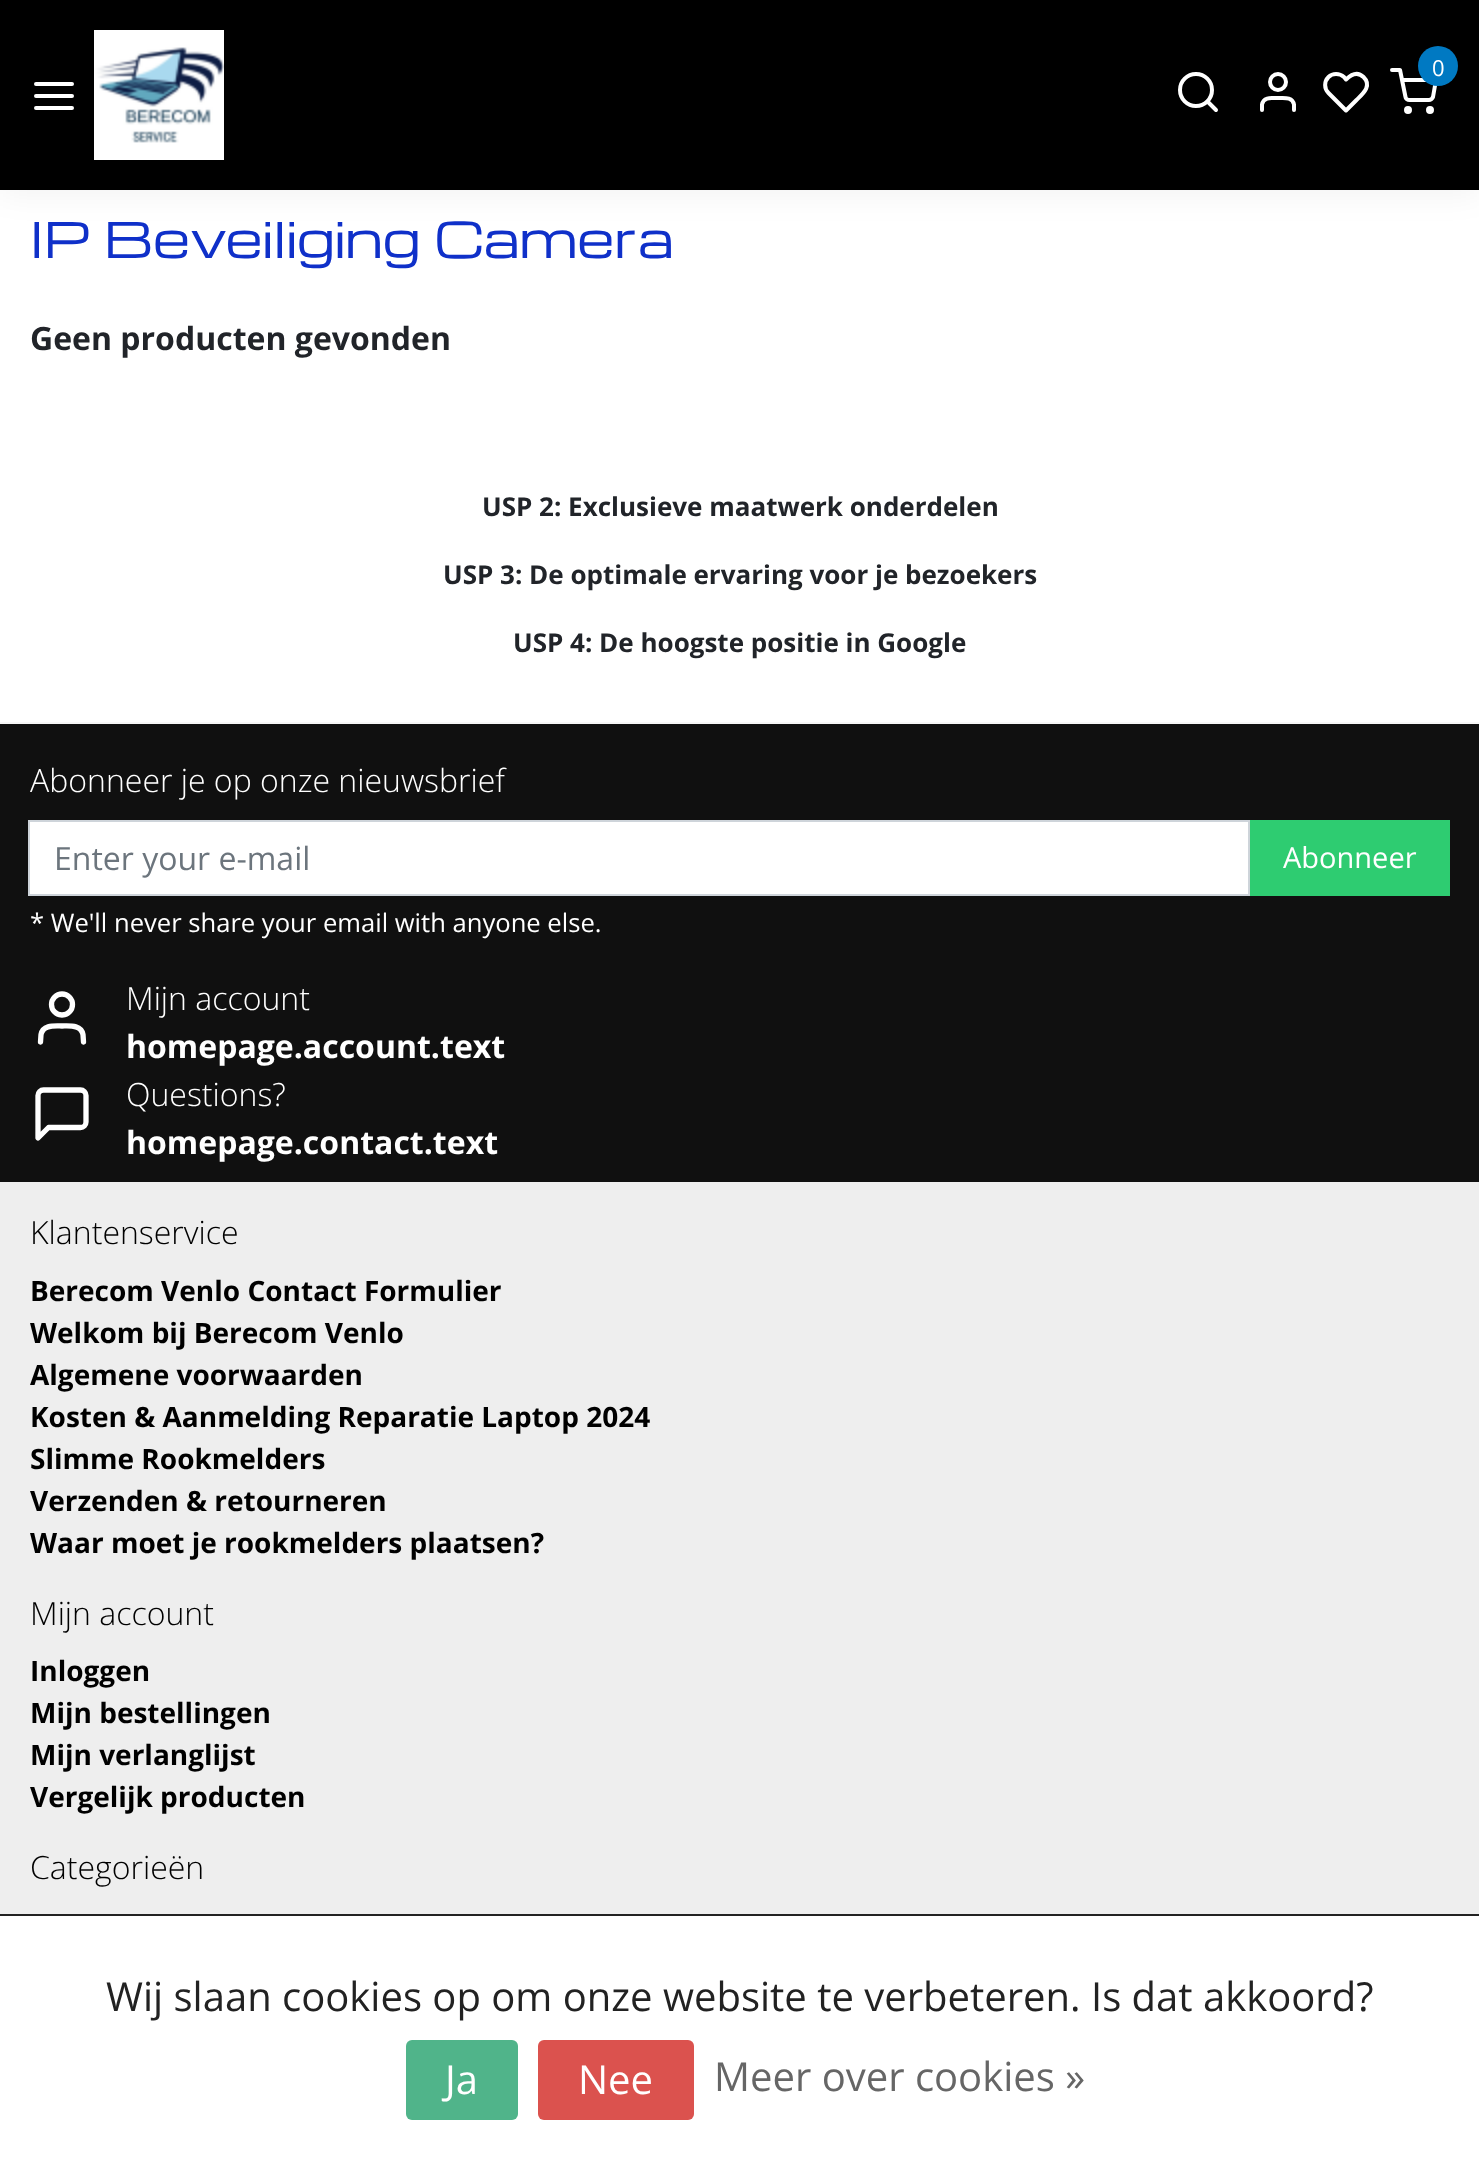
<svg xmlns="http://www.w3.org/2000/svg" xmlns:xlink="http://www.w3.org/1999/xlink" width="1479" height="2160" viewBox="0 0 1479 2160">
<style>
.cls-1{font:22px Open Sans;fill:#ffffff}
.cls-2{font:48px Michroma;fill:#0f30c9}
.cls-3{font:bold 32px Open Sans;fill:#212429}
.cls-4{font:bold 26px Open Sans;fill:#212429}
.cls-5{font:300 32px Open Sans;fill:#ffffff}
.cls-6{font:32px Open Sans;fill:#6c757d}
.cls-7{font:29px Open Sans;fill:#ffffff}
.cls-8{font:25.6px Open Sans;fill:#ffffff}
.cls-9{font:bold 32px Open Sans;fill:#ffffff}
.cls-10{font:300 32px Open Sans;fill:#000000}
.cls-11{font:bold 28px Open Sans;fill:#000000}
.cls-12{font:40px Open Sans;fill:#222222}
.cls-13{font:40px Open Sans;fill:#ffffff}
.cls-14{font:40px Open Sans;fill:#666666}
</style>
<rect width="100%" height="100%" fill="#ffffff"/>
<rect fill="#000000" fill-opacity="0.05" filter="blur(16px)" x="0" y="4" width="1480" height="190"/>
<rect fill="#000000" x="0" y="0" width="1479" height="190"/>
<path fill="none" stroke="#ffffff" stroke-width="4" stroke-linecap="round" stroke-linejoin="round" d="M36 96H72M36 84H72M36 108H72"/>
<image xlink:href="image0.png" x="94" y="30" width="130" height="130"/>
<path fill="none" stroke="#ffffff" stroke-width="4" stroke-linecap="round" stroke-linejoin="round" d="M1392 70H1400L1405.5 97C1405.5 98.5 1407.5 100 1409.5 100H1429C1430.5 100 1432.5 98.5 1433 97L1436 80H1402"/>
<circle fill="#0079c2" cx="1438" cy="66" r="20"/>
<circle fill="none" stroke="#ffffff" stroke-width="4" cx="1408" cy="110" r="2"/>
<circle fill="none" stroke="#ffffff" stroke-width="4" cx="1430" cy="110" r="2"/>
<circle fill="none" stroke="#ffffff" stroke-width="4" cx="1196" cy="90" r="16"/>
<path fill="none" stroke="#ffffff" stroke-width="4" stroke-linecap="round" stroke-linejoin="round" d="M1216 110L1207.5 101.5"/>
<path fill="none" stroke="#ffffff" stroke-width="4" stroke-linecap="round" stroke-linejoin="round" d="M1294 110V104.5C1292.5 96.5 1284 98 1278 98C1272 98 1263.5 96.5 1262 104.5V110"/>
<circle fill="none" stroke="#ffffff" stroke-width="4" cx="1278" cy="82" r="8"/>
<path fill="none" stroke="#ffffff" stroke-width="4" stroke-linecap="round" stroke-linejoin="round" d="M1363.5 77C1357.5 71 1351 74.5 1346 79.5L1344 77C1339.5 73 1332.5 73 1328.5 77C1324 81.5 1324 88.5 1328.5 93L1346 110.5L1356.5 100C1362.5 94 1372.5 86 1363.5 77Z"/>
<rect fill="#f7f7f7" x="0" y="722" width="1479" height="2"/>
<rect fill="#101010" x="0" y="724" width="1479" height="458"/>
<rect fill="#ffffff" stroke="#ced4da" stroke-width="2" x="29" y="821" width="1220" height="74"/>
<rect fill="#2ecc71" x="1250" y="820" width="200" height="76"/>
<path fill="none" stroke="#ffffff" stroke-width="5.3" stroke-linecap="round" stroke-linejoin="round" d="M83.5 1042L83 1034.5C81 1024.5 69.5 1026 62 1026C54.5 1026 43 1024.5 41 1034.5L40.5 1042"/>
<circle fill="none" stroke="#ffffff" stroke-width="5.3" cx="62" cy="1004.5" r="10.5"/>
<path fill="none" stroke="#ffffff" stroke-width="5.3" stroke-linecap="round" stroke-linejoin="round" d="M86 1122C86 1125 83.5 1127.5 80.5 1127.5H48.5L38 1138V1095.5C38 1092.5 40.5 1090 43.5 1090H80.5C83.5 1090 86 1092.5 86 1095.5Z"/>
<rect fill="#eeeeee" x="0" y="1182" width="1479" height="732"/>
<rect fill="#222222" x="0" y="1914" width="1479" height="2"/>
<rect fill="#50b48a" x="406" y="2040" width="112" height="80" rx="6"/>
<rect fill="#db524e" x="538" y="2040" width="156" height="80" rx="6"/>
<text class="cls-1" x="1432" y="76">0</text>
<text class="cls-2" x="30" y="258">IP Beveiliging Camera</text>
<text class="cls-3" x="30" y="350">Geen producten gevonden</text>
<text class="cls-4" x="482" y="516">USP 2: Exclusieve maatwerk onderdelen</text>
<text class="cls-4" x="443" y="584">USP 3: De optimale ervaring voor je bezoekers</text>
<text class="cls-4" x="513" y="652">USP 4: De hoogste positie in Google</text>
<text class="cls-5" x="30" y="792">Abonneer je op onze nieuwsbrief</text>
<text class="cls-6" x="54" y="870">Enter your e-mail</text>
<text class="cls-7" x="1283" y="868">Abonneer</text>
<text class="cls-8" x="30" y="932">* We'll never share your email with anyone else.</text>
<text class="cls-5" x="126" y="1010">Mijn account</text>
<text class="cls-9" x="126" y="1058">homepage.account.text</text>
<text class="cls-5" x="126" y="1106">Questions?</text>
<text class="cls-9" x="126" y="1154">homepage.contact.text</text>
<text class="cls-10" x="30" y="1244">Klantenservice</text>
<text class="cls-11"><tspan x="30" y="1301">Berecom Venlo Contact Formulier</tspan><tspan x="30" y="1343">Welkom bij Berecom Venlo</tspan><tspan x="30" y="1385">Algemene voorwaarden</tspan><tspan x="30" y="1427">Kosten &amp; Aanmelding Reparatie Laptop 2024</tspan><tspan x="30" y="1469">Slimme Rookmelders</tspan><tspan x="30" y="1511">Verzenden &amp; retourneren</tspan><tspan x="30" y="1553">Waar moet je rookmelders plaatsen?</tspan></text>
<text class="cls-10" x="30" y="1625">Mijn account</text>
<text class="cls-11"><tspan x="30" y="1681">Inloggen</tspan><tspan x="30" y="1723">Mijn bestellingen</tspan><tspan x="30" y="1765">Mijn verlanglijst</tspan><tspan x="30" y="1807">Vergelijk producten</tspan></text>
<text class="cls-10" x="30" y="1879">Categorieën</text>
<text class="cls-12" x="106" y="2011">Wij slaan cookies op om onze website te verbeteren. Is dat akkoord?</text>
<text class="cls-13" x="445" y="2094">Ja</text>
<text class="cls-13" x="578" y="2094">Nee</text>
<text class="cls-14" x="714" y="2091">Meer over cookies »</text>
</svg>
